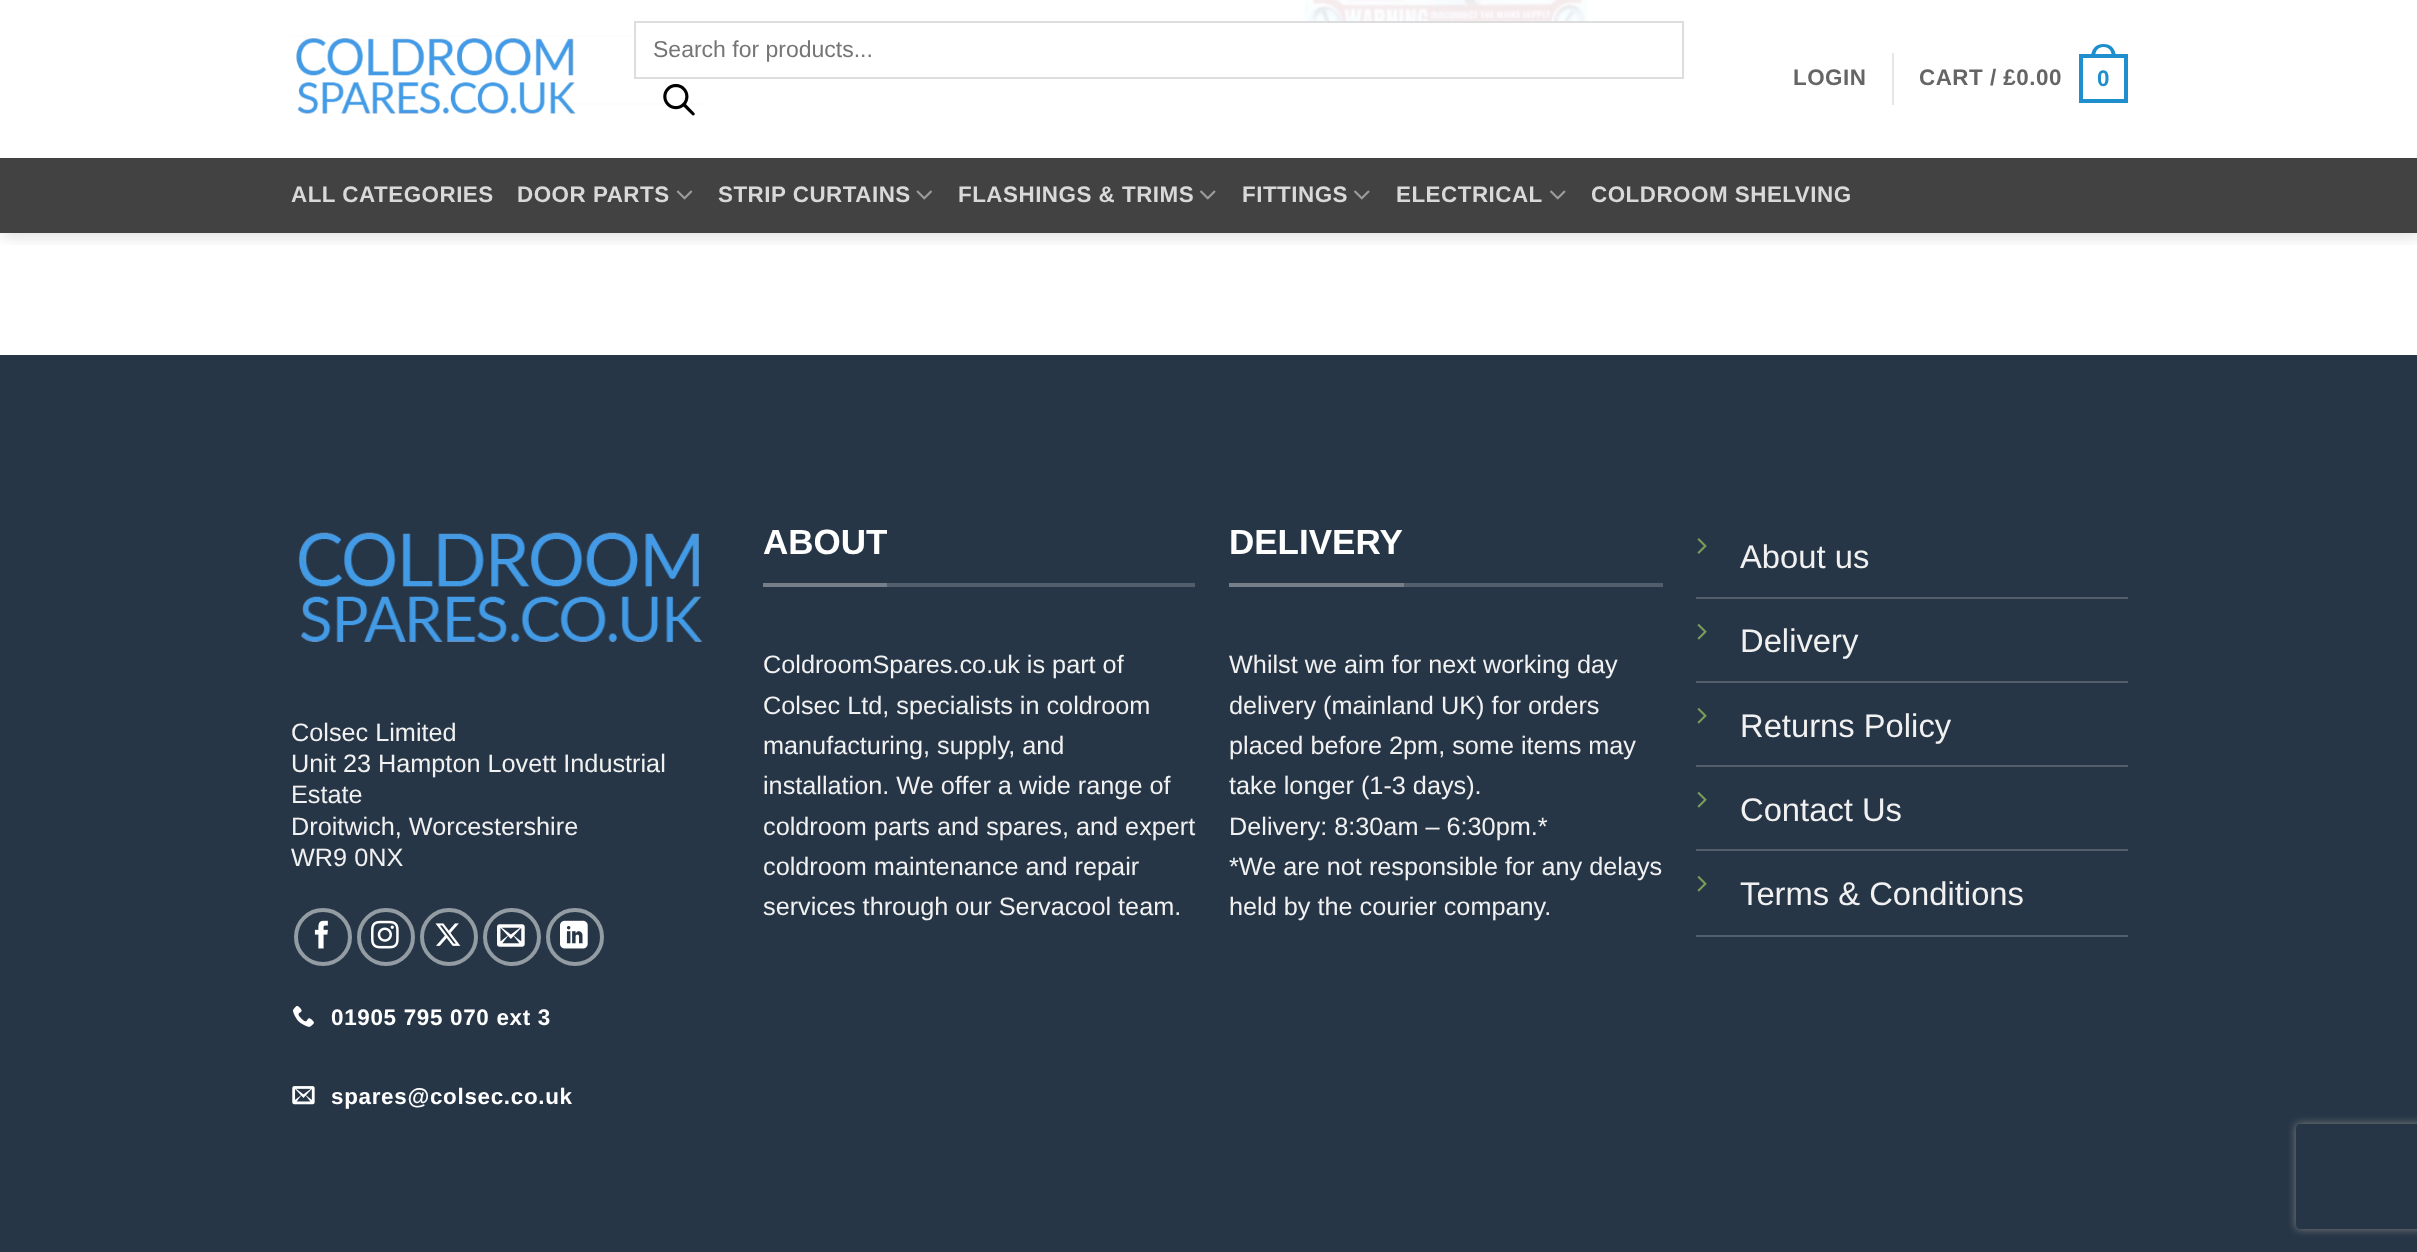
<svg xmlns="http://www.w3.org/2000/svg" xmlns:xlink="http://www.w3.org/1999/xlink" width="2417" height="1252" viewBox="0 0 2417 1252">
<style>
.cls-1{font:23px Liberation Sans;fill:#757575}
.cls-2{font:bold 22.4px Liberation Sans;letter-spacing:0.5px;fill:#656565}
.cls-3{font:bold 22.4px Liberation Sans;letter-spacing:0.5px;fill:#1e8fcc}
.cls-4{font:bold 22.4px Liberation Sans;letter-spacing:0.5px;fill:#d9d9d9}
.cls-5{font:25.25px Liberation Sans;fill:#f1f1f1}
.cls-6{font:bold 22.4px Liberation Sans;letter-spacing:0.7px;fill:#ffffff}
.cls-7{font:bold 35px Liberation Sans;fill:#ffffff}
.cls-8{font:32.75px Liberation Sans;fill:#f1f1f1}
</style>
<defs>
<clipPath id="clip1"><rect x="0" y="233" width="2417" height="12"/></clipPath>
<clipPath id="clip2"><path d="M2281 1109H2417V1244H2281ZM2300 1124H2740C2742 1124 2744 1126 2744 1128V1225C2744 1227 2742 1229 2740 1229H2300C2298 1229 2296 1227 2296 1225V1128C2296 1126 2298 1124 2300 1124Z" clip-rule="evenodd"/></clipPath>
</defs>
<rect width="100%" height="100%" fill="#ffffff"/>
<image xlink:href="image0.png" x="1299" y="0" width="295" height="21"/>
<rect fill="#ececec" x="291" y="35" width="343" height="2"/>
<rect fill="#ececec" x="291" y="103" width="420" height="2"/>
<g clip-path="url(#clip1)">
<rect fill="#000000" fill-opacity="0.15" filter="blur(9px)" x="2" y="2" width="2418" height="233"/>
</g>
<rect fill="#ffffff" fill-opacity="0.9" x="291" y="0" width="1303" height="105"/>
<image xlink:href="image1.png" x="296" y="38" width="280" height="76"/>
<rect fill="none" stroke="#dddddd" stroke-width="2" x="635" y="22" width="1048" height="56"/>
<image xlink:href="image2.png" x="663" y="84" width="32" height="32"/>
<rect fill="#e6e6e6" x="1892" y="53" width="2" height="52"/>
<rect fill="none" stroke="#1e8fcc" stroke-width="4" x="2081" y="56" width="45" height="45"/>
<path fill="#1e8fcc" fill-rule="evenodd" d="M2103.5 44C2112 44 2116 50 2116 58H2091C2091 50 2095 44 2103.5 44ZM2103.5 47C2110 47 2112 52 2112 58H2095C2095 52 2097 47 2103.5 47Z"/>
<rect fill="#424242" x="0" y="158" width="2417" height="75"/>
<image xlink:href="image3.png" x="676" y="190" width="17" height="10"/>
<image xlink:href="image4.png" x="916" y="190" width="16" height="10"/>
<image xlink:href="image5.png" x="1200" y="190" width="16" height="10"/>
<image xlink:href="image5.png" x="1354" y="190" width="16" height="10"/>
<image xlink:href="image5.png" x="1550" y="190" width="16" height="10"/>
<rect fill="#273647" x="0" y="355" width="2417" height="897"/>
<image xlink:href="image6.png" x="298" y="532" width="405" height="110"/>
<circle fill="none" stroke="#939ba3" stroke-width="4" cx="323" cy="937" r="27"/>
<image xlink:href="image7.png" x="314" y="920" width="14" height="29"/>
<circle fill="none" stroke="#939ba3" stroke-width="4" cx="386" cy="937" r="27"/>
<image xlink:href="image8.png" x="371" y="920" width="28" height="29"/>
<circle fill="none" stroke="#939ba3" stroke-width="4" cx="449" cy="937" r="27"/>
<image xlink:href="image9.png" x="435" y="923" width="26" height="23"/>
<circle fill="none" stroke="#939ba3" stroke-width="4" cx="512" cy="937" r="27"/>
<image xlink:href="image10.png" x="497" y="924" width="28" height="23"/>
<circle fill="none" stroke="#939ba3" stroke-width="4" cx="575" cy="937" r="27"/>
<image xlink:href="image11.png" x="560" y="920" width="28" height="29"/>
<image xlink:href="image12.png" x="293" y="1005" width="21" height="22"/>
<image xlink:href="image13.png" x="292" y="1086" width="23" height="19"/>
<rect fill="#525e6c" x="887" y="583" width="308" height="4"/>
<rect fill="#757e89" x="763" y="583" width="124" height="4"/>
<rect fill="#525e6c" x="1404" y="583" width="259" height="4"/>
<rect fill="#757e89" x="1229" y="583" width="175" height="4"/>
<rect fill="#525e6c" x="1696" y="597" width="432" height="2"/>
<image xlink:href="image14.png" x="1697" y="538" width="10" height="16"/>
<rect fill="#525e6c" x="1696" y="681" width="432" height="2"/>
<image xlink:href="image15.png" x="1697" y="624" width="10" height="16"/>
<rect fill="#525e6c" x="1696" y="765" width="432" height="2"/>
<image xlink:href="image15.png" x="1697" y="708" width="10" height="16"/>
<rect fill="#525e6c" x="1696" y="849" width="432" height="2"/>
<image xlink:href="image15.png" x="1697" y="792" width="10" height="16"/>
<rect fill="#525e6c" x="1696" y="935" width="432" height="2"/>
<image xlink:href="image15.png" x="1697" y="876" width="10" height="16"/>
<g clip-path="url(#clip2)">
<rect fill="#808080" filter="blur(4.5px)" x="2296" y="1124" width="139" height="105" rx="4"/>
</g>
<text class="cls-1" x="653" y="57">Search for products...</text>
<text class="cls-2" x="1793" y="85">LOGIN</text>
<text class="cls-2" x="1919" y="85">CART / £0.00</text>
<text class="cls-3" x="2097" y="86">0</text>
<text class="cls-4" x="291" y="202">ALL CATEGORIES</text>
<text class="cls-4" x="517" y="202">DOOR PARTS</text>
<text class="cls-4" x="718" y="202">STRIP CURTAINS</text>
<text class="cls-4" x="958" y="202">FLASHINGS &amp; TRIMS</text>
<text class="cls-4" x="1242" y="202">FITTINGS</text>
<text class="cls-4" x="1396" y="202">ELECTRICAL</text>
<text class="cls-4" x="1591" y="202">COLDROOM SHELVING</text>
<text class="cls-5"><tspan x="291" y="741">Colsec Limited</tspan><tspan x="291" y="772">Unit 23 Hampton Lovett Industrial</tspan><tspan x="291" y="803">Estate</tspan><tspan x="291" y="835">Droitwich, Worcestershire</tspan><tspan x="291" y="866">WR9 0NX</tspan></text>
<text class="cls-6" x="331" y="1025">01905 795 070 ext 3</text>
<text class="cls-6" x="331" y="1104">spares@colsec.co.uk</text>
<text class="cls-7" x="763" y="554">ABOUT</text>
<text class="cls-5"><tspan x="763" y="673">ColdroomSpares.co.uk is part of</tspan><tspan x="763" y="714">Colsec Ltd, specialists in coldroom</tspan><tspan x="763" y="754">manufacturing, supply, and</tspan><tspan x="763" y="794">installation. We offer a wide range of</tspan><tspan x="763" y="835">coldroom parts and spares, and expert</tspan><tspan x="763" y="875">coldroom maintenance and repair</tspan><tspan x="763" y="915">services through our Servacool team.</tspan></text>
<text class="cls-7" x="1229" y="554">DELIVERY</text>
<text class="cls-5"><tspan x="1229" y="673">Whilst we aim for next working day</tspan><tspan x="1229" y="714">delivery (mainland UK) for orders</tspan><tspan x="1229" y="754">placed before 2pm, some items may</tspan><tspan x="1229" y="794">take longer (1-3 days).</tspan><tspan x="1229" y="835">Delivery: 8:30am – 6:30pm.*</tspan><tspan x="1229" y="875">*We are not responsible for any delays</tspan><tspan x="1229" y="915">held by the courier company.</tspan></text>
<text class="cls-8" x="1740" y="568">About us</text>
<text class="cls-8" x="1740" y="652">Delivery</text>
<text class="cls-8" x="1740" y="737">Returns Policy</text>
<text class="cls-8" x="1740" y="821">Contact Us</text>
<text class="cls-8" x="1740" y="905">Terms &amp; Conditions</text>
</svg>
